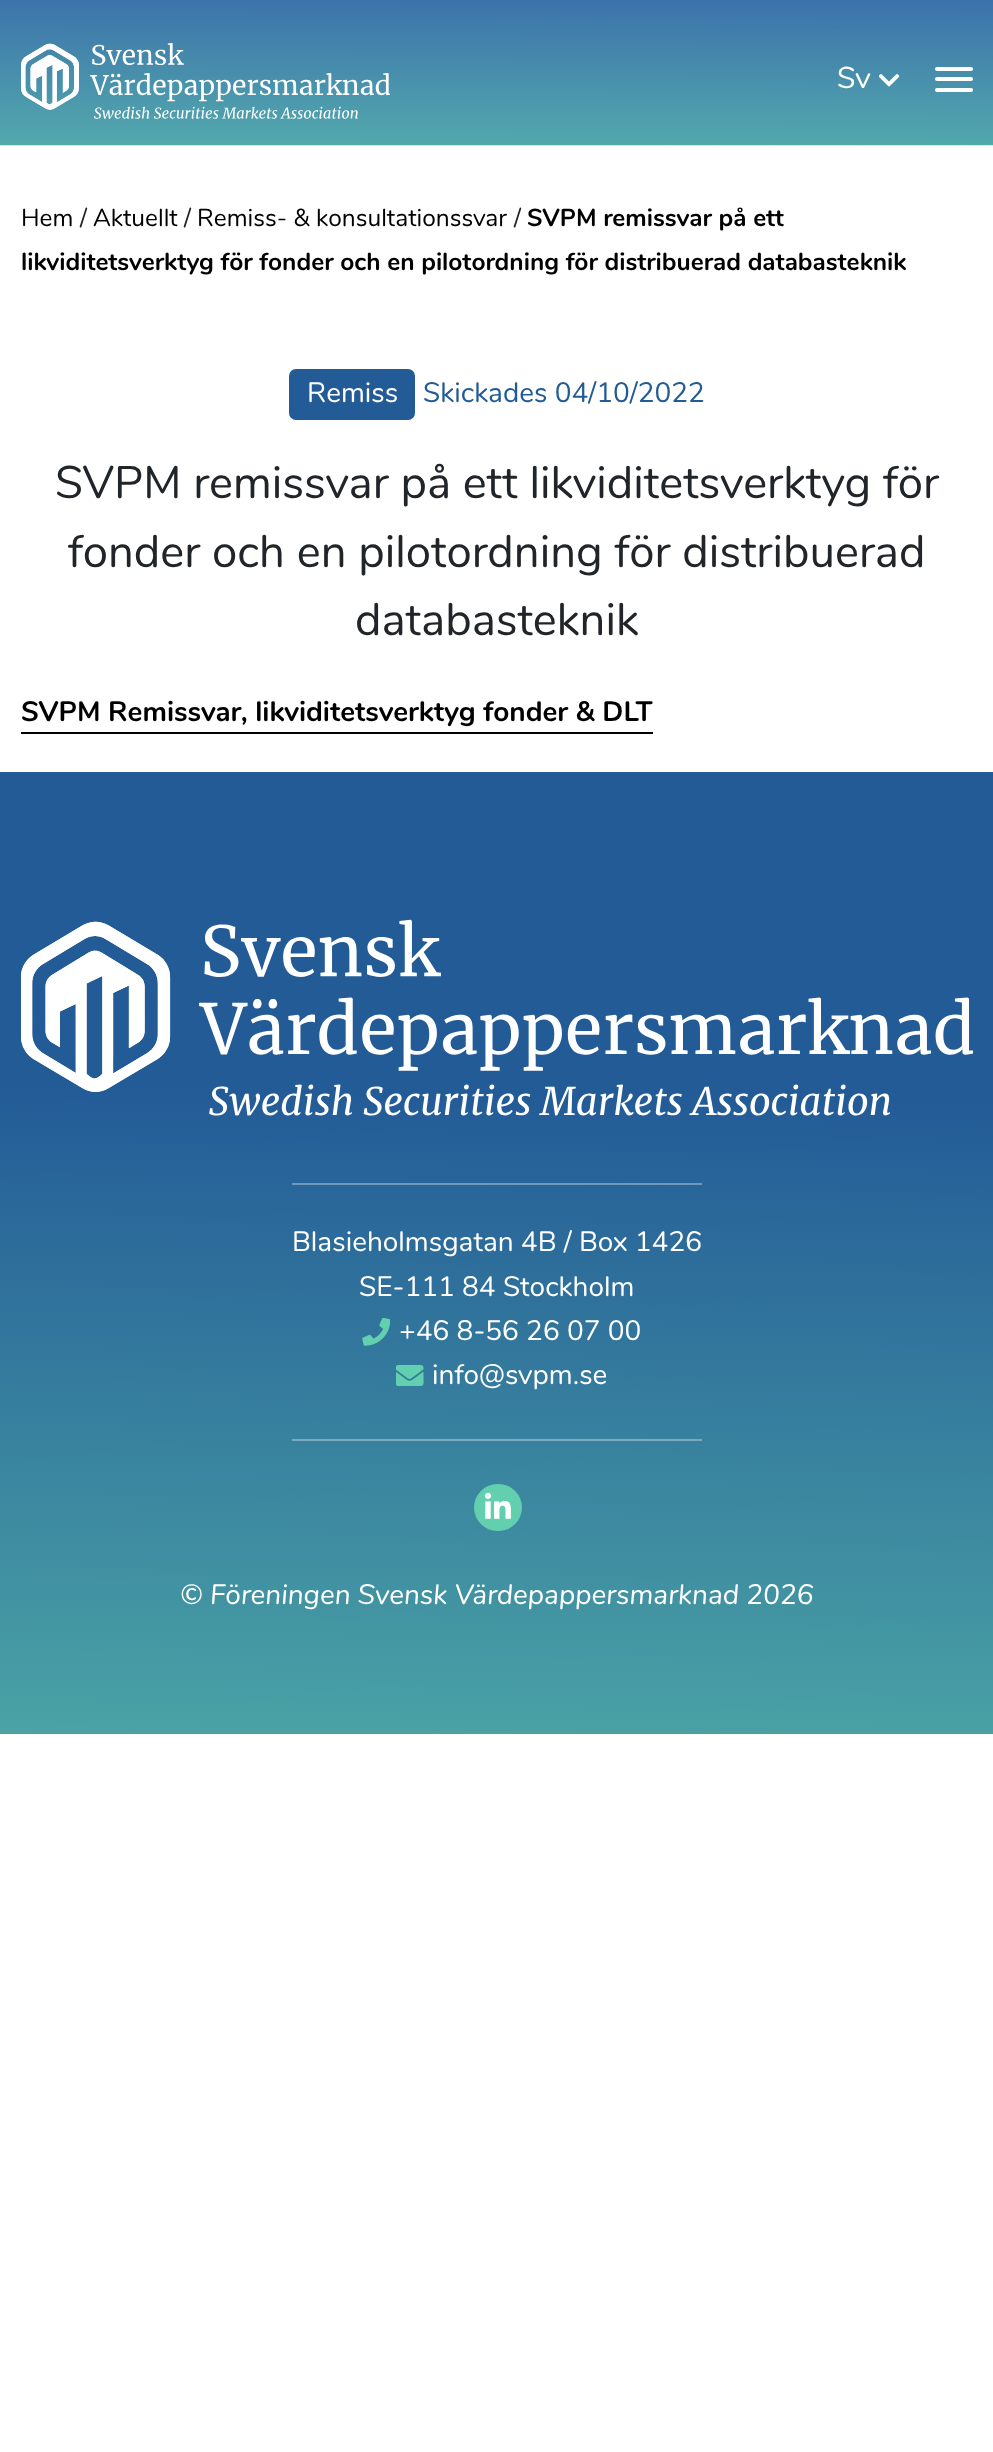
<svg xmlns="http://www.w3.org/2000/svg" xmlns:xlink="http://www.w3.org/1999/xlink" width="993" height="2452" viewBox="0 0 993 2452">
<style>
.cls-1{font:30px Nunito;fill:#ffffff}
.cls-2{font:24.5px Nunito;fill:#000000}
.cls-3{font:24.5px Nunito;fill:#212529}
.cls-4{font:bold 24.5px Nunito;fill:#000000}
.cls-5{font:28px Nunito;fill:#ffffff}
.cls-6{font:28px Nunito;fill:#235b97}
.cls-7{font:45.5px Nunito;fill:#212529}
.cls-8{font:bold 28px Nunito;fill:#000000}
.cls-9{font:italic 28px Nunito;fill:#ffffff}
</style>
<defs>
<linearGradient id="g1" gradientUnits="userSpaceOnUse" x1="497" y1="-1.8" x2="496" y2="249"><stop offset="0" stop-color="#3c72ab"/><stop offset="1" stop-color="#62cfae"/></linearGradient>
<linearGradient id="g2" gradientUnits="userSpaceOnUse" x1="505" y1="764" x2="482" y2="2144"><stop offset="0.24" stop-color="#235b97"/><stop offset="1" stop-color="#62cfae"/></linearGradient>
</defs>
<rect width="100%" height="100%" fill="#ffffff"/>
<rect fill="url(#g1)" x="0" y="0" width="993" height="145"/>
<image xlink:href="image0.png" x="21" y="43" width="369" height="76"/>
<image xlink:href="image1.png" x="879" y="74" width="21" height="13"/>
<rect fill="#ffffff" x="935" y="77" width="38" height="4" rx="2"/>
<rect fill="#ffffff" x="935" y="67" width="38" height="4" rx="2"/>
<rect fill="#ffffff" x="935" y="88" width="38" height="4" rx="2"/>
<image xlink:href="image2.png" x="0" y="145" width="993" height="1"/>
<rect fill="#235b97" x="289" y="369" width="126" height="51" rx="7"/>
<rect fill="#000000" x="21" y="732" width="632" height="2"/>
<rect fill="url(#g2)" x="0" y="772" width="993" height="962"/>
<image xlink:href="image3.png" x="21" y="919" width="952" height="197"/>
<rect fill="#6f98bb" x="292" y="1183" width="410" height="2"/>
<rect fill="#7aabbf" x="292" y="1439" width="410" height="2"/>
<image xlink:href="image4.png" x="362" y="1318" width="28" height="28"/>
<image xlink:href="image5.png" x="396" y="1365" width="28" height="21"/>
<rect fill="#62cfae" x="474" y="1484" width="48" height="47" rx="23.5"/>
<image xlink:href="image6.png" x="484" y="1493" width="27" height="26"/>
<text class="cls-1" x="837" y="88">Sv</text>
<text class="cls-2" x="21" y="226">Hem</text>
<text class="cls-3" x="80" y="226">/</text>
<text class="cls-2" x="93" y="226">Aktuellt</text>
<text class="cls-3" x="184" y="226">/</text>
<text class="cls-2" x="197" y="226">Remiss- &amp; konsultationssvar</text>
<text class="cls-3" x="514" y="226">/</text>
<text class="cls-4" x="527" y="226">SVPM remissvar på ett</text>
<text class="cls-4" x="21" y="270">likviditetsverktyg för fonder och en pilotordning för distribuerad databasteknik</text>
<text class="cls-5" x="307" y="402">Remiss</text>
<text class="cls-6" x="423" y="402">Skickades 04/10/2022</text>
<text class="cls-7" x="55" y="498">SVPM remissvar på ett likviditetsverktyg för</text>
<text class="cls-7" x="68" y="567">fonder och en pilotordning för distribuerad</text>
<text class="cls-7" x="355" y="635">databasteknik</text>
<text class="cls-8" x="21" y="721">SVPM Remissvar, likviditetsverktyg fonder &amp; DLT</text>
<text class="cls-5" x="292" y="1251">Blasieholmsgatan 4B / Box 1426</text>
<text class="cls-5" x="359" y="1296">SE-111 84 Stockholm</text>
<text class="cls-5" x="399" y="1340">+46 8-56 26 07 00</text>
<text class="cls-5" x="432" y="1384">info@svpm.se</text>
<text class="cls-9" x="180" y="1604">© Föreningen Svensk Värdepappersmarknad 2026</text>
</svg>
